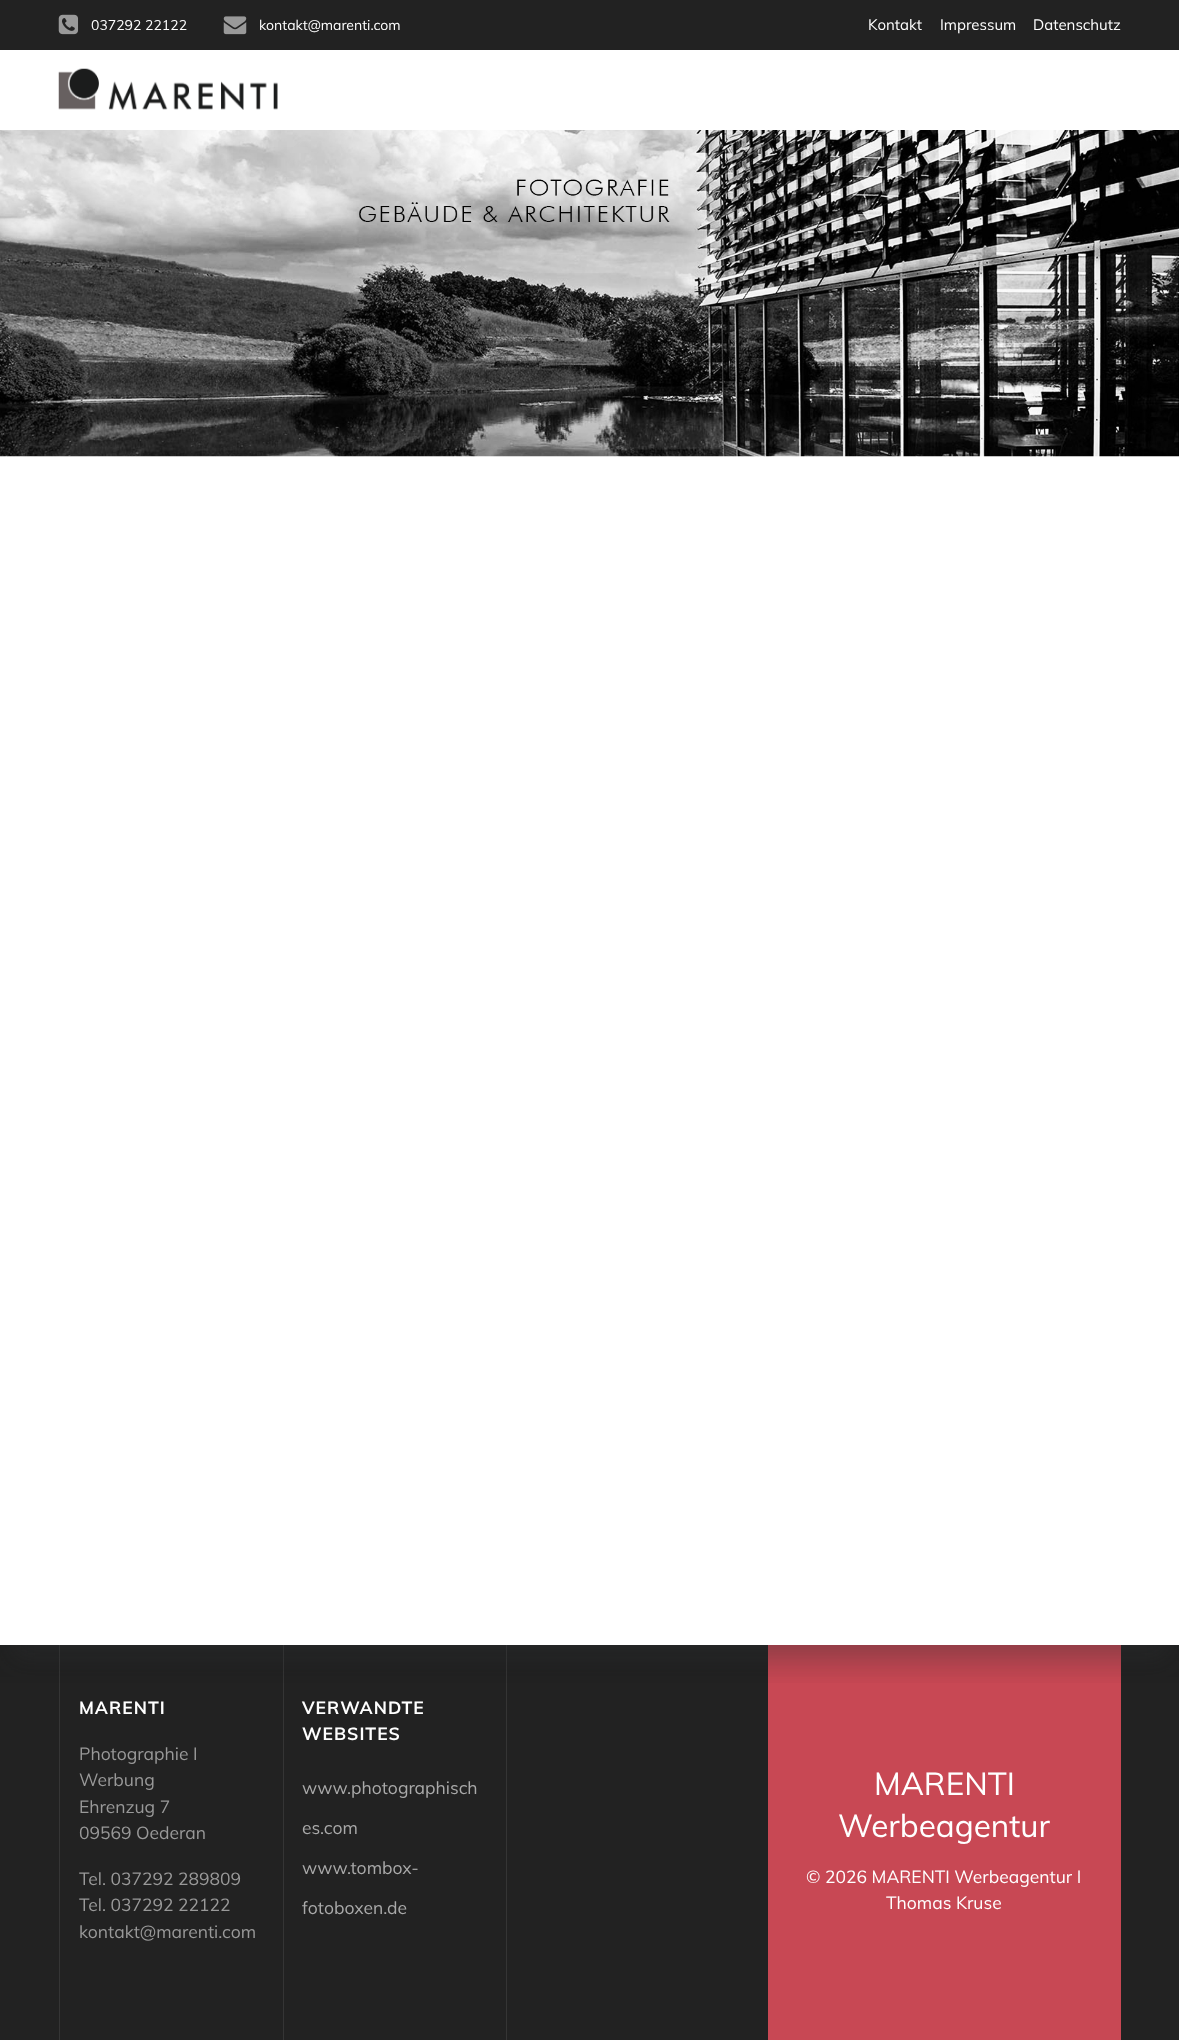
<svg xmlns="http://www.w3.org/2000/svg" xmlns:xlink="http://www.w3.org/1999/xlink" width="1179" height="2040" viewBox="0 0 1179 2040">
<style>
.cls-1{font:14px Muli;fill:#ffffff}
.cls-2{font:15px Muli;fill:#ffffff}
.cls-3{font:bold 17.5px Muli;letter-spacing:1px;fill:#ffffff}
.cls-4{font:17.5px Muli;fill:#999999}
.cls-5{font:17.5px Muli;fill:#aaaaaa}
.cls-6{font:31.5px Muli;fill:#ffffff}
.cls-7{font:17.5px Muli;fill:#ffffff}
</style>
<defs>
<clipPath id="clip1"><rect x="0" y="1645" width="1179" height="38"/></clipPath>
<clipPath id="clip2"><rect x="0" y="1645" width="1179" height="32"/></clipPath>
</defs>
<rect width="100%" height="100%" fill="#ffffff"/>
<rect fill="#222222" x="0" y="0" width="1179" height="50"/>
<image xlink:href="image0.png" x="58" y="14" width="21" height="21"/>
<image xlink:href="image1.png" x="223" y="16" width="24" height="19"/>
<image xlink:href="image2.png" x="58" y="68" width="220" height="42"/>
<image xlink:href="image3.png" x="0" y="130" width="1179" height="327"/>
<rect fill="#222222" x="0" y="1645" width="1179" height="395"/>
<rect fill="#353535" x="59" y="1645" width="1" height="395"/>
<rect fill="#353535" x="283" y="1645" width="1" height="395"/>
<rect fill="#353535" x="506" y="1645" width="1" height="395"/>
<rect fill="#c84854" x="768" y="1645" width="353" height="395"/>
<g clip-path="url(#clip1)">
<rect fill="#000000" fill-opacity="0.08" filter="blur(19px)" x="0" y="531" width="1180" height="1139"/>
</g>
<g clip-path="url(#clip2)">
<rect fill="#313439" fill-opacity="0.3" filter="blur(12.5px)" x="13" y="544" width="1155" height="1114"/>
</g>
<text class="cls-1" x="91" y="30">037292 22122</text>
<text class="cls-1" x="259" y="30">kontakt@marenti.com</text>
<text class="cls-2" x="868" y="30">Kontakt</text>
<text class="cls-2" x="940" y="30">Impressum</text>
<text class="cls-2" x="1033" y="30">Datenschutz</text>
<text class="cls-3" x="79" y="1714">MARENTI</text>
<text class="cls-4"><tspan x="79" y="1760">Photographie I</tspan><tspan x="79" y="1786">Werbung</tspan><tspan x="79" y="1813">Ehrenzug 7</tspan><tspan x="79" y="1839">09569 Oederan</tspan></text>
<text class="cls-4"><tspan x="79" y="1885">Tel. 037292 289809</tspan><tspan x="79" y="1911">Tel. 037292 22122</tspan><tspan x="79" y="1938">kontakt@marenti.com</tspan></text>
<text class="cls-3"><tspan x="302" y="1714">VERWANDTE</tspan><tspan x="302" y="1740">WEBSITES</tspan></text>
<text class="cls-5" x="302" y="1794">www.photographisch</text>
<text class="cls-5" x="302" y="1834">es.com</text>
<text class="cls-5" x="302" y="1874">www.tombox-</text>
<text class="cls-5" x="302" y="1914">fotoboxen.de</text>
<text class="cls-6" x="874" y="1795">MARENTI</text>
<text class="cls-6" x="838" y="1837">Werbeagentur</text>
<text class="cls-7" x="806" y="1883">© 2026 MARENTI Werbeagentur I</text>
<text class="cls-7" x="886" y="1909">Thomas Kruse</text>
</svg>
